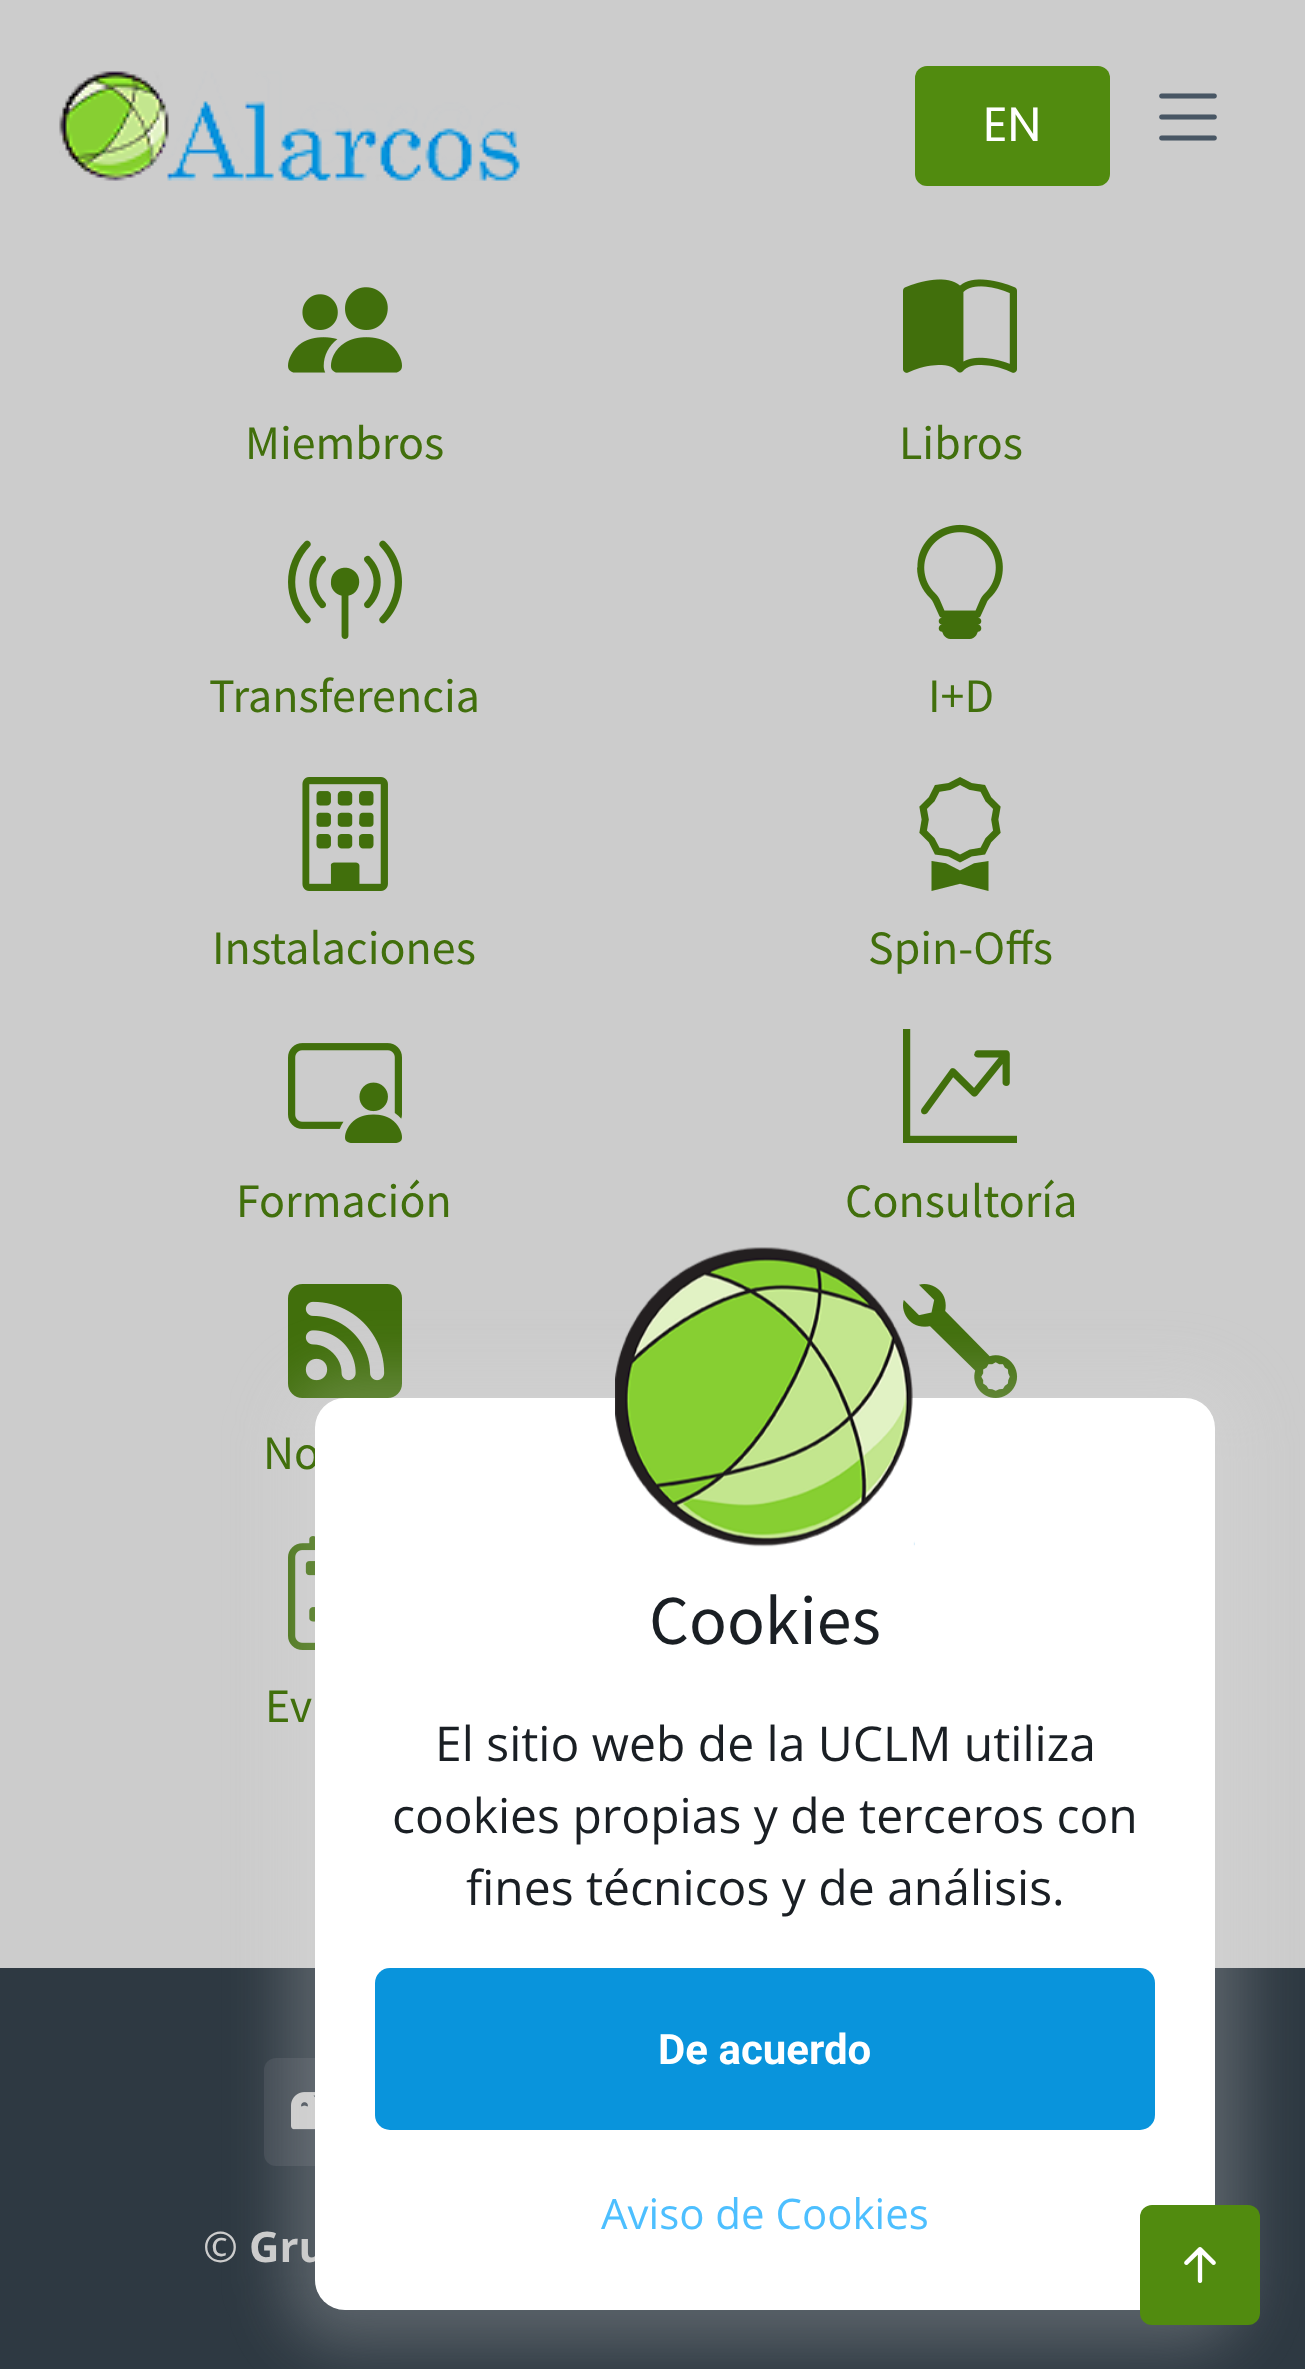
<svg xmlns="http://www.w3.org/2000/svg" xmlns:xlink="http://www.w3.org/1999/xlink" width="1305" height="2369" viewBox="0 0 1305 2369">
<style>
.cls-1{font:48px Poppins;fill:#ffffff}
.cls-2{font:48px Source Sans Pro;fill:#416f0c}
.cls-3{font:42px Open Sans;fill:#cccccc}
.cls-4{font:bold 42px Open Sans;fill:#cccccc}
.cls-5{font:42px Open Sans;fill:#4dbfff}
.cls-6{font:bold 42px Roboto;fill:#ffffff}
.cls-7{font:48px Open Sans;fill:#1a1f24}
.cls-8{font:70px Source Sans Pro;fill:#1a1f24}
</style>
<rect width="100%" height="100%" fill="#cccccc"/>
<image xlink:href="image0.png" x="59" y="71" width="461" height="110"/>
<rect fill="#518b0f" x="915" y="66" width="195" height="120" rx="12"/>
<image xlink:href="image1.png" x="1159" y="93" width="58" height="48"/>
<image xlink:href="image2.png" x="288" y="287" width="114" height="86"/>
<image xlink:href="image3.png" x="903" y="279" width="114" height="94"/>
<image xlink:href="image4.png" x="288" y="540" width="114" height="99"/>
<image xlink:href="image5.png" x="917" y="524" width="86" height="115"/>
<image xlink:href="image6.png" x="302" y="777" width="86" height="114"/>
<image xlink:href="image7.png" x="919" y="777" width="82" height="114"/>
<image xlink:href="image8.png" x="288" y="1043" width="114" height="100"/>
<image xlink:href="image9.png" x="903" y="1029" width="114" height="114"/>
<image xlink:href="image10.png" x="903" y="1284" width="115" height="114"/>
<image xlink:href="image11.png" x="288" y="1284" width="114" height="114"/>
<image xlink:href="image12.png" x="288" y="1536" width="27" height="114"/>
<rect fill="#2e3942" x="0" y="1968" width="1305" height="401"/>
<rect fill="#3e4750" x="264" y="2058" width="108" height="108" rx="12"/>
<image xlink:href="image14.png" x="291" y="2092" width="24" height="38"/>
<rect fill="#dedede" fill-opacity="0.25" filter="blur(30px)" x="285" y="1374" width="960" height="972" rx="60"/>
<text class="cls-1" x="983" y="141">EN</text>
<text class="cls-2" x="245" y="459">Miembros</text>
<text class="cls-2" x="899" y="459">Libros</text>
<text class="cls-2" x="209" y="712">Transferencia</text>
<text class="cls-2" x="928" y="712">I+D</text>
<text class="cls-2" x="212" y="964">Instalaciones</text>
<text class="cls-2" x="868" y="964">Spin-Offs</text>
<text class="cls-2" x="236" y="1217">Formación</text>
<text class="cls-2" x="845" y="1217">Consultoría</text>
<text class="cls-2" x="263" y="1469">No</text>
<text class="cls-2" x="265" y="1722">Ev</text>
<text class="cls-3" x="203" y="2262">©</text>
<text class="cls-4" x="249" y="2262">Gru</text>
<rect fill="#ffffff" x="315" y="1398" width="900" height="912" rx="30"/>
<image xlink:href="image13.png" x="615" y="1247" width="300" height="300"/>
<text class="cls-5" x="601" y="2229">Aviso de Cookies</text>
<rect fill="#0994dc" x="375" y="1968" width="780" height="162" rx="15"/>
<text class="cls-6" x="658" y="2064">De acuerdo</text>
<text class="cls-7" x="466" y="1905">fines técnicos y de análisis.</text>
<text class="cls-7" x="392" y="1833">cookies propias y de terceros con</text>
<text class="cls-7" x="435" y="1761">El sitio web de la UCLM utiliza</text>
<text class="cls-8" x="649" y="1644">Cookies</text>
<rect fill="#518b0f" x="1140" y="2205" width="120" height="120" rx="12"/>
<image xlink:href="image15.png" x="1184" y="2247" width="32" height="36"/>
</svg>
